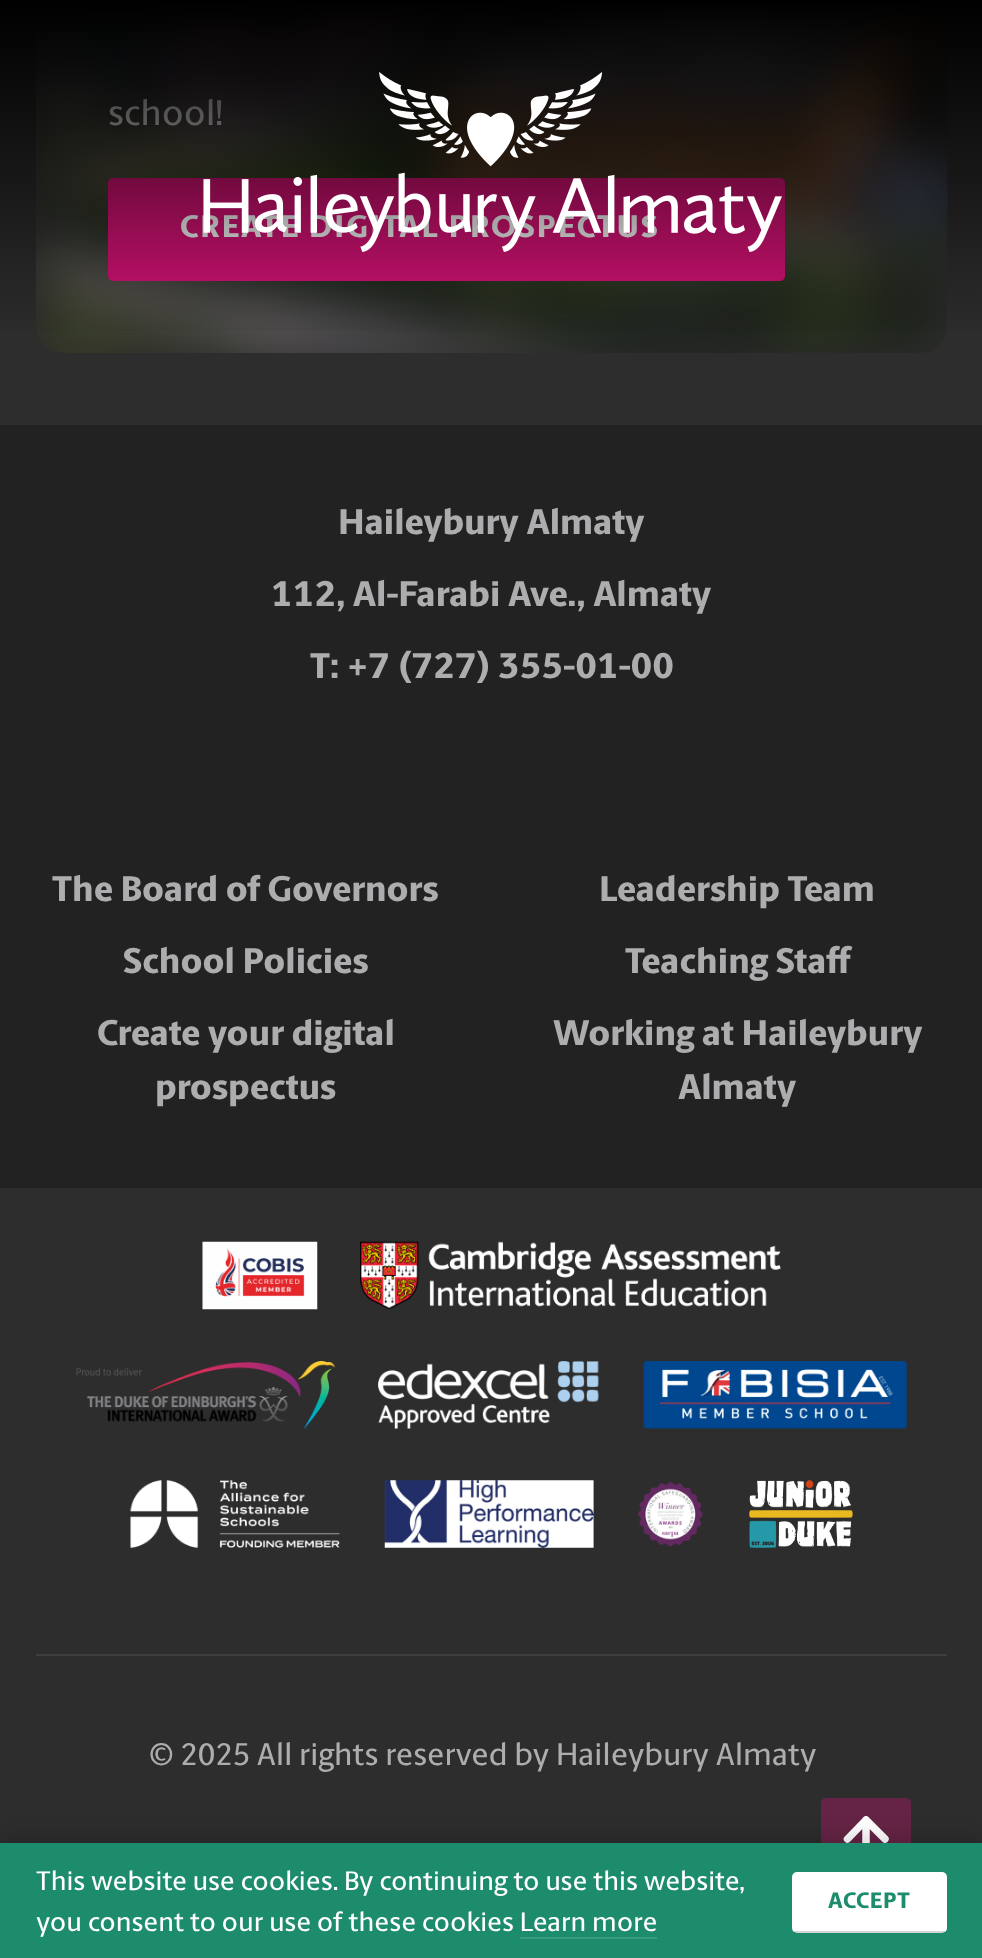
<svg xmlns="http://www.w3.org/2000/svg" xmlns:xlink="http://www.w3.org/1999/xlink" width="982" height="1958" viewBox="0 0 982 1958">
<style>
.cls-1{font:500 36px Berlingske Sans;fill:#ffffff}
.cls-2{font:800 31.5px Berlingske Sans;letter-spacing:2.25px;fill:#ffffff}
.cls-3{font:800 36px Berlingske Sans;fill:#adacae}
.cls-4{font:500 31.5px Berlingske Sans;fill:#adacae}
.cls-5{font:500 27px Berlingske Sans;fill:#ffffff}
.cls-6{font:800 22.5px Berlingske Sans;letter-spacing:1px;fill:#1d8c6c}
</style>
<defs>
<linearGradient id="g1" gradientUnits="userSpaceOnUse" x1="492" y1="0" x2="492" y2="342"><stop offset="0" stop-color="#000000"/><stop offset="0.5" stop-color="#000000" stop-opacity="0.5"/><stop offset="1" stop-color="#000000" stop-opacity="0"/></linearGradient>
</defs>
<rect width="100%" height="100%" fill="#2d2d2d"/>
<image xlink:href="image1.png" x="36" y="2" width="912" height="351"/>
<rect fill="#db1278" x="108" y="178" width="677" height="103" rx="5"/>
<rect fill="#222222" x="0" y="425" width="982" height="763"/>
<image xlink:href="image2.png" x="202" y="1241" width="116" height="69"/>
<image xlink:href="image3.png" x="360" y="1241" width="421" height="69"/>
<image xlink:href="image4.png" x="76" y="1361" width="260" height="68"/>
<image xlink:href="image5.png" x="378" y="1361" width="221" height="68"/>
<image xlink:href="image6.png" x="643" y="1361" width="264" height="68"/>
<image xlink:href="image7.png" x="130" y="1480" width="210" height="68"/>
<image xlink:href="image8.png" x="384" y="1480" width="210" height="68"/>
<image xlink:href="image9.png" x="638" y="1482" width="65" height="65"/>
<image xlink:href="image10.png" x="749" y="1480" width="104" height="68"/>
<rect fill="#3e3e3e" x="36" y="1654" width="911" height="2"/>
<rect fill="#652445" x="821" y="1798" width="90" height="90" rx="5"/>
<path fill="none" stroke="#ffffff" stroke-width="7.5" stroke-linecap="round" stroke-linejoin="round" d="M847.5 1839L866 1820M866 1820L885 1839M866 1820V1865"/>
<rect fill="#000000" fill-opacity="0.12" filter="blur(9px)" x="0" y="1834" width="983" height="117"/>
<rect fill="#1d8c6c" x="0" y="1843" width="982" height="115"/>
<rect fill="#389a7e" x="520" y="1937" width="137" height="2"/>
<rect fill="#ffffff" x="792" y="1872" width="155" height="61" rx="5"/>
<rect fill="#000000" fill-opacity="0.16" x="794" y="1931" width="151" height="2"/>
<text class="cls-1" x="108" y="125">school!</text>
<text class="cls-2" x="180" y="237">CREATE DIGITAL PROSPECTUS</text>
<rect fill="url(#g1)" x="0" y="0" width="982" height="331"/>
<image xlink:href="image0.png" x="203" y="72" width="579" height="180"/>
<text class="cls-3" x="338" y="534">Haileybury Almaty</text>
<text class="cls-3" x="271" y="606">112, Al-Farabi Ave., Almaty</text>
<text class="cls-3" x="310" y="678">T: +7 (727) 355-01-00</text>
<text class="cls-3" x="52" y="901">The Board of Governors</text>
<text class="cls-3" x="599" y="901">Leadership Team</text>
<text class="cls-3" x="123" y="973">School Policies</text>
<text class="cls-3" x="625" y="973">Teaching Staff</text>
<text class="cls-3" x="97" y="1045">Create your digital</text>
<text class="cls-3" x="155" y="1099">prospectus</text>
<text class="cls-3" x="553" y="1045">Working at Haileybury</text>
<text class="cls-3" x="678" y="1099">Almaty</text>
<text class="cls-4" x="149" y="1765">© 2025 All rights reserved by Haileybury Almaty</text>
<text class="cls-5"><tspan x="36" y="1890">This website use cookies. By continuing to use this website,</tspan><tspan x="36" y="1931">you consent to our use of these cookies Learn more</tspan></text>
<text class="cls-6" x="828" y="1908">ACCEPT</text>
</svg>
